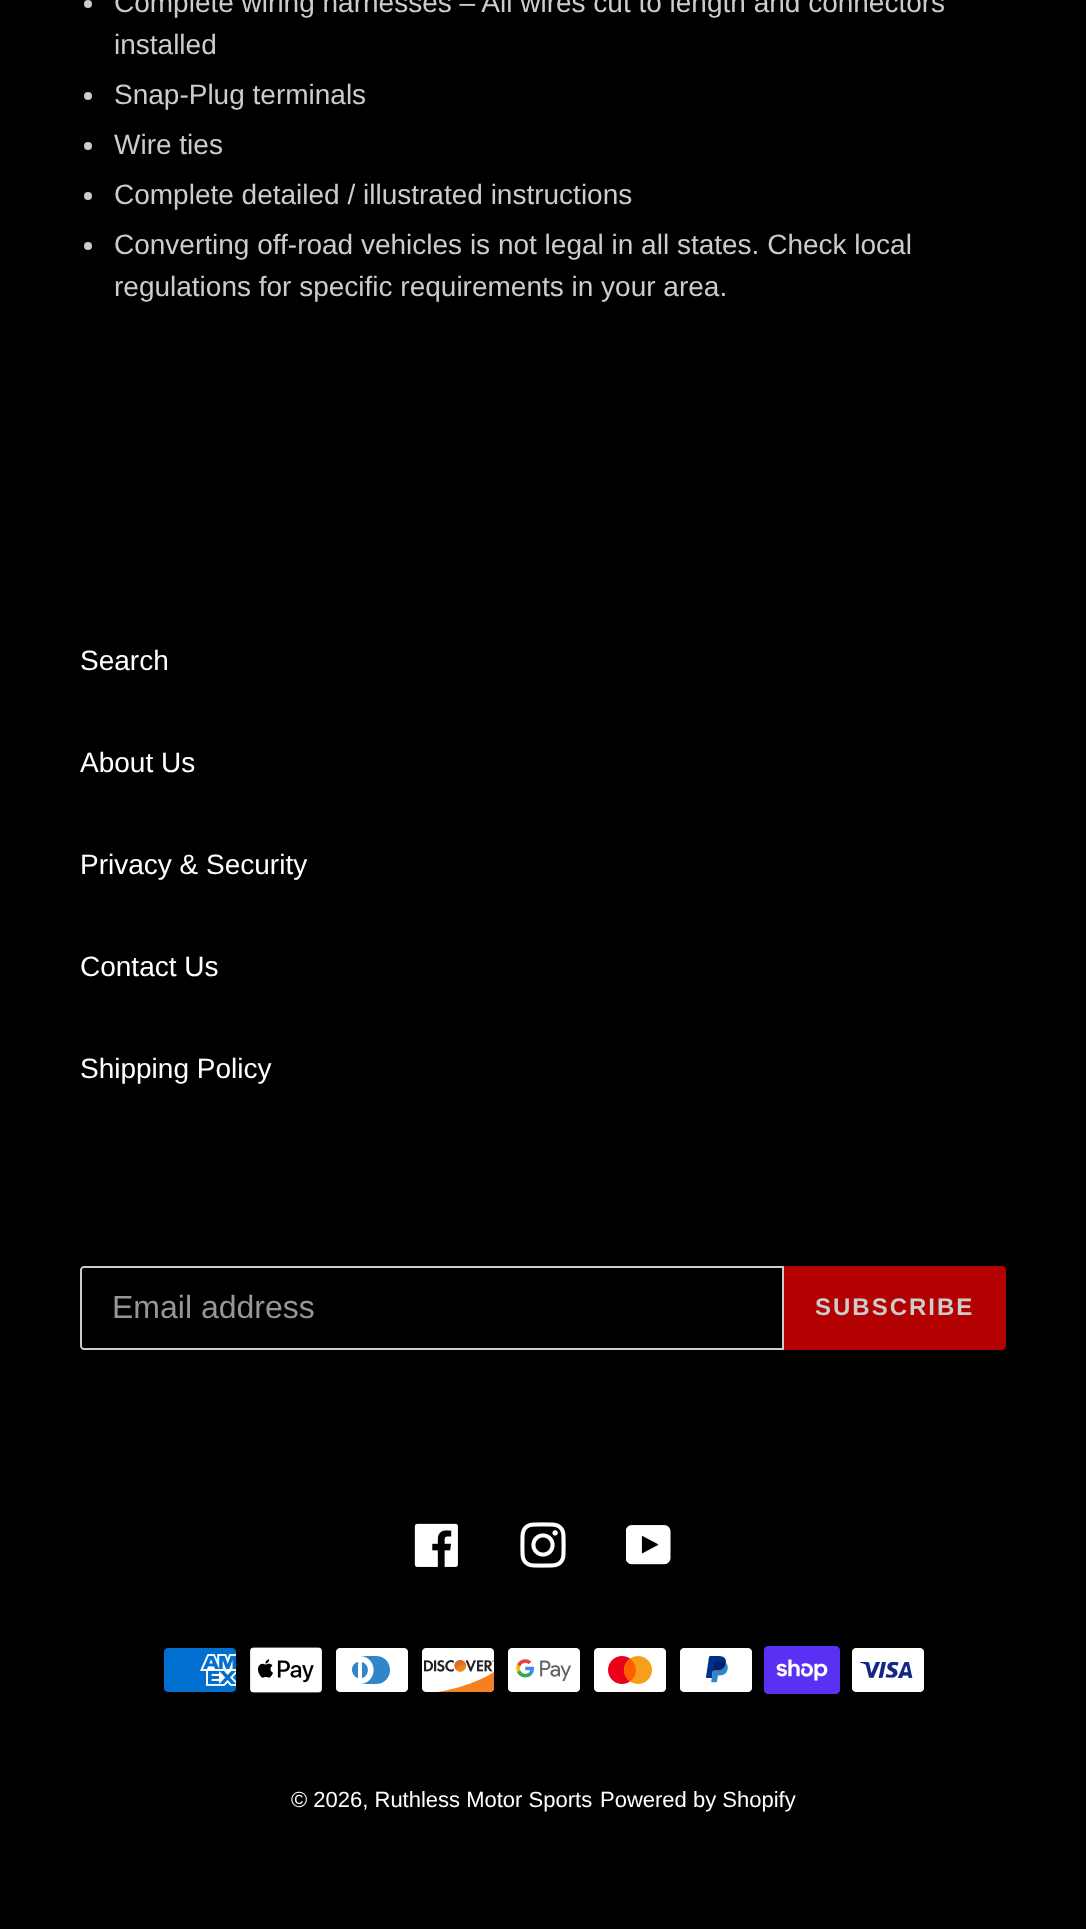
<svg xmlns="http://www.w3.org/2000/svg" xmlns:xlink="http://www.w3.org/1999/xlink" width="1086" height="1929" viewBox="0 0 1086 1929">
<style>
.cls-1{font:28px Liberation Sans;fill:#cccccc}
.cls-2{font:28px Liberation Sans;fill:#ffffff}
.cls-3{font:32px Liberation Sans;fill:#969696}
.cls-4{font:bold 24px Liberation Sans;letter-spacing:2px;fill:#cccccc}
.cls-5{font:22px Liberation Sans;fill:#ffffff}
</style>
<rect width="100%" height="100%" fill="#000000"/>
<circle fill="#cccccc" cx="88" cy="4" r="4"/>
<circle fill="#cccccc" cx="88" cy="96" r="4"/>
<circle fill="#cccccc" cx="88" cy="146" r="4"/>
<circle fill="#cccccc" cx="88" cy="196" r="4"/>
<circle fill="#cccccc" cx="88" cy="246" r="4"/>
<path fill="none" stroke="#cccccc" stroke-width="2" d="M84 1267H783V1349H84C82.5 1349 81 1347.5 81 1346V1270C81 1268.5 82.5 1267 84 1267Z"/>
<path fill="#b30000" d="M784 1266H1002C1004 1266 1006 1268 1006 1270V1346C1006 1348 1004 1350 1002 1350H784Z"/>
<image xlink:href="image0.png" x="414" y="1523" width="44" height="44"/>
<image xlink:href="image1.png" x="520" y="1522" width="46" height="46"/>
<image xlink:href="image2.png" x="626" y="1525" width="45" height="40"/>
<image xlink:href="image3.png" x="164" y="1648" width="72" height="44"/>
<image xlink:href="image4.png" x="250" y="1647" width="72" height="46"/>
<image xlink:href="image5.png" x="336" y="1648" width="72" height="44"/>
<image xlink:href="image6.png" x="422" y="1648" width="73" height="44"/>
<image xlink:href="image7.png" x="508" y="1648" width="72" height="44"/>
<image xlink:href="image8.png" x="594" y="1648" width="72" height="44"/>
<image xlink:href="image9.png" x="680" y="1648" width="72" height="44"/>
<image xlink:href="image10.png" x="764" y="1646" width="76" height="48"/>
<image xlink:href="image11.png" x="852" y="1648" width="72" height="44"/>
<text class="cls-1"><tspan x="114" y="12">Complete wiring harnesses – All wires cut to length and connectors</tspan><tspan x="114" y="54">installed</tspan><tspan x="114" y="104">Snap-Plug terminals</tspan><tspan x="114" y="154">Wire ties</tspan><tspan x="114" y="204">Complete detailed / illustrated instructions</tspan><tspan x="114" y="254">Converting off-road vehicles is not legal in all states. Check local</tspan><tspan x="114" y="296">regulations for specific requirements in your area.</tspan></text>
<text class="cls-2" x="80" y="670">Search</text>
<text class="cls-2" x="80" y="772">About Us</text>
<text class="cls-2" x="80" y="874">Privacy &amp; Security</text>
<text class="cls-2" x="80" y="976">Contact Us</text>
<text class="cls-2" x="80" y="1078">Shipping Policy</text>
<text class="cls-3" x="112" y="1318">Email address</text>
<text class="cls-4" x="815" y="1315">SUBSCRIBE</text>
<text class="cls-5" x="291" y="1807">© 2026, Ruthless Motor Sports</text>
<text class="cls-5" x="600" y="1807">Powered by Shopify</text>
</svg>
